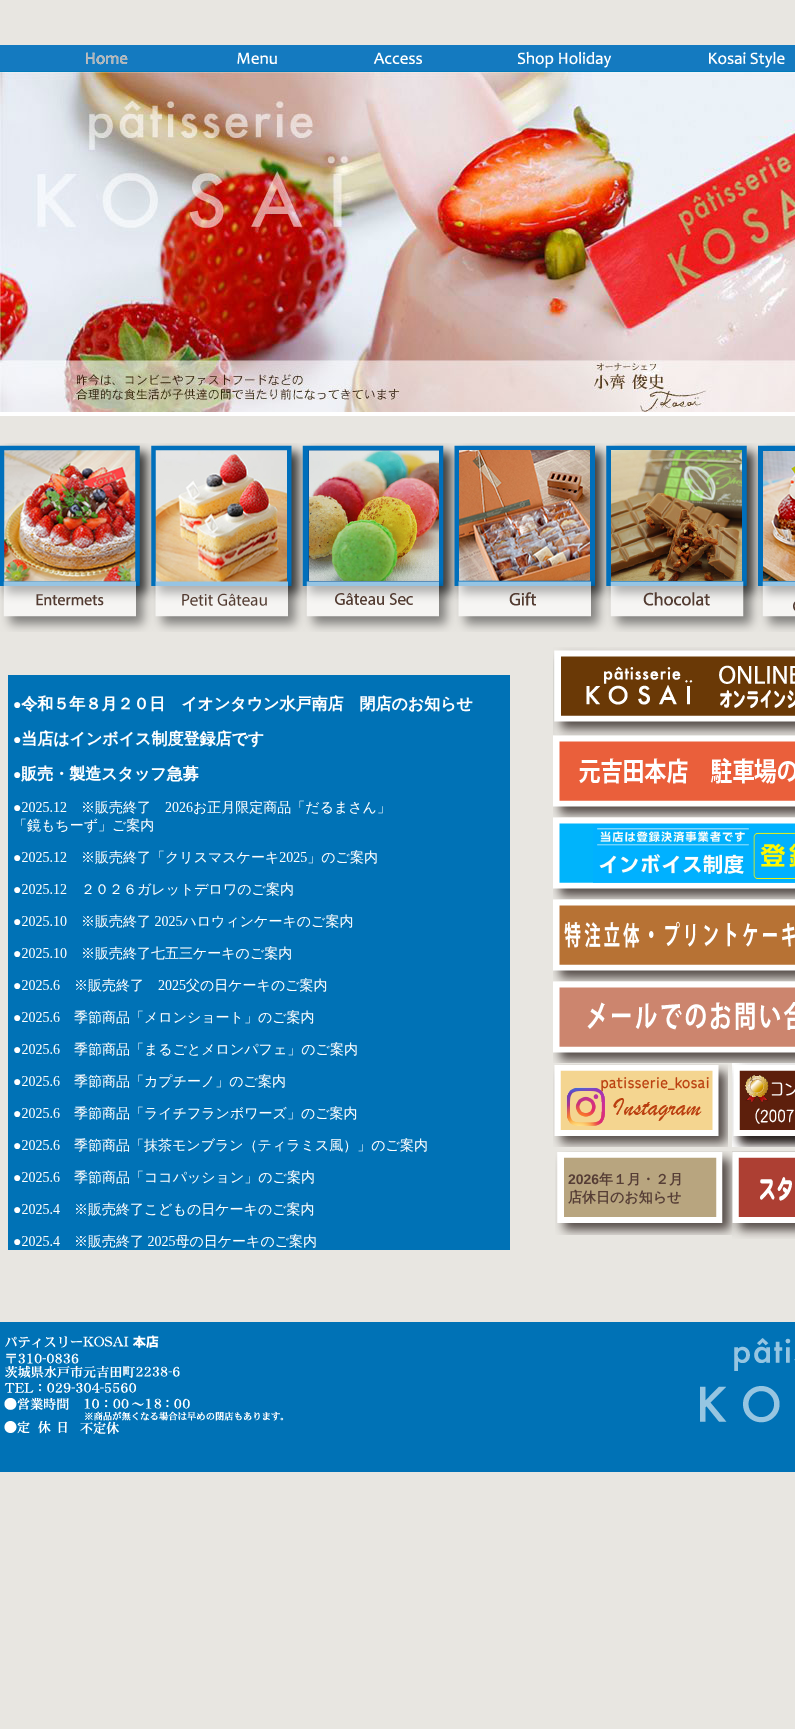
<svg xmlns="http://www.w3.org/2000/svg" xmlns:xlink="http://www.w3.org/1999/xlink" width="795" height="1729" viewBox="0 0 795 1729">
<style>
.cls-1{font:bold 14px Liberation Sans;fill:#563e36}
.cls-2{font:bold 14px WenQuanYi Zen Hei;fill:#563e36}
</style>
<rect width="100%" height="100%" fill="#e8e6e1"/>
<rect fill="#007bb9" x="0" y="71" width="795" height="1"/>
<rect fill="#147ac0" x="0" y="45" width="62" height="26"/>
<image xlink:href="image0.png" x="62" y="45" width="125" height="26"/>
<image xlink:href="image1.png" x="187" y="45" width="137" height="26"/>
<image xlink:href="image2.png" x="324" y="45" width="144" height="26"/>
<image xlink:href="image3.png" x="468" y="45" width="187" height="26"/>
<image xlink:href="image4.png" x="655" y="45" width="140" height="26"/>
<rect fill="#ffffff" x="0" y="412" width="795" height="4"/>
<image xlink:href="image5.png" x="0" y="72" width="795" height="340"/>
<image xlink:href="image6.png" x="0" y="443" width="151" height="189"/>
<image xlink:href="image7.png" x="151" y="443" width="152" height="189"/>
<image xlink:href="image8.png" x="303" y="443" width="151" height="189"/>
<image xlink:href="image9.png" x="454" y="443" width="152" height="189"/>
<image xlink:href="image10.png" x="606" y="443" width="152" height="189"/>
<image xlink:href="image11.png" x="758" y="443" width="37" height="189"/>
<image xlink:href="image12.png" x="8" y="675" width="502" height="575"/>
<image xlink:href="image13.png" x="553" y="647" width="242" height="88"/>
<image xlink:href="image14.png" x="553" y="735" width="242" height="82"/>
<image xlink:href="image15.png" x="553" y="817" width="242" height="82"/>
<image xlink:href="image16.png" x="553" y="899" width="242" height="82"/>
<image xlink:href="image17.png" x="553" y="981" width="242" height="82"/>
<image xlink:href="image18.png" x="553" y="1064" width="175" height="83"/>
<image xlink:href="image19.png" x="732" y="1063" width="63" height="84"/>
<image xlink:href="image20.png" x="555" y="1151" width="177" height="84"/>
<image xlink:href="image21.png" x="732" y="1151" width="63" height="88"/>
<rect fill="#0072b6" x="0" y="1322" width="795" height="150"/>
<image xlink:href="image22.png" x="4" y="1335" width="791" height="99"/>
<text class="cls-1" x="568" y="1184">2026</text>
<text class="cls-2" x="599" y="1184">年１月・２月</text>
<text class="cls-2" x="568" y="1202">店休日のお知らせ</text>
</svg>
